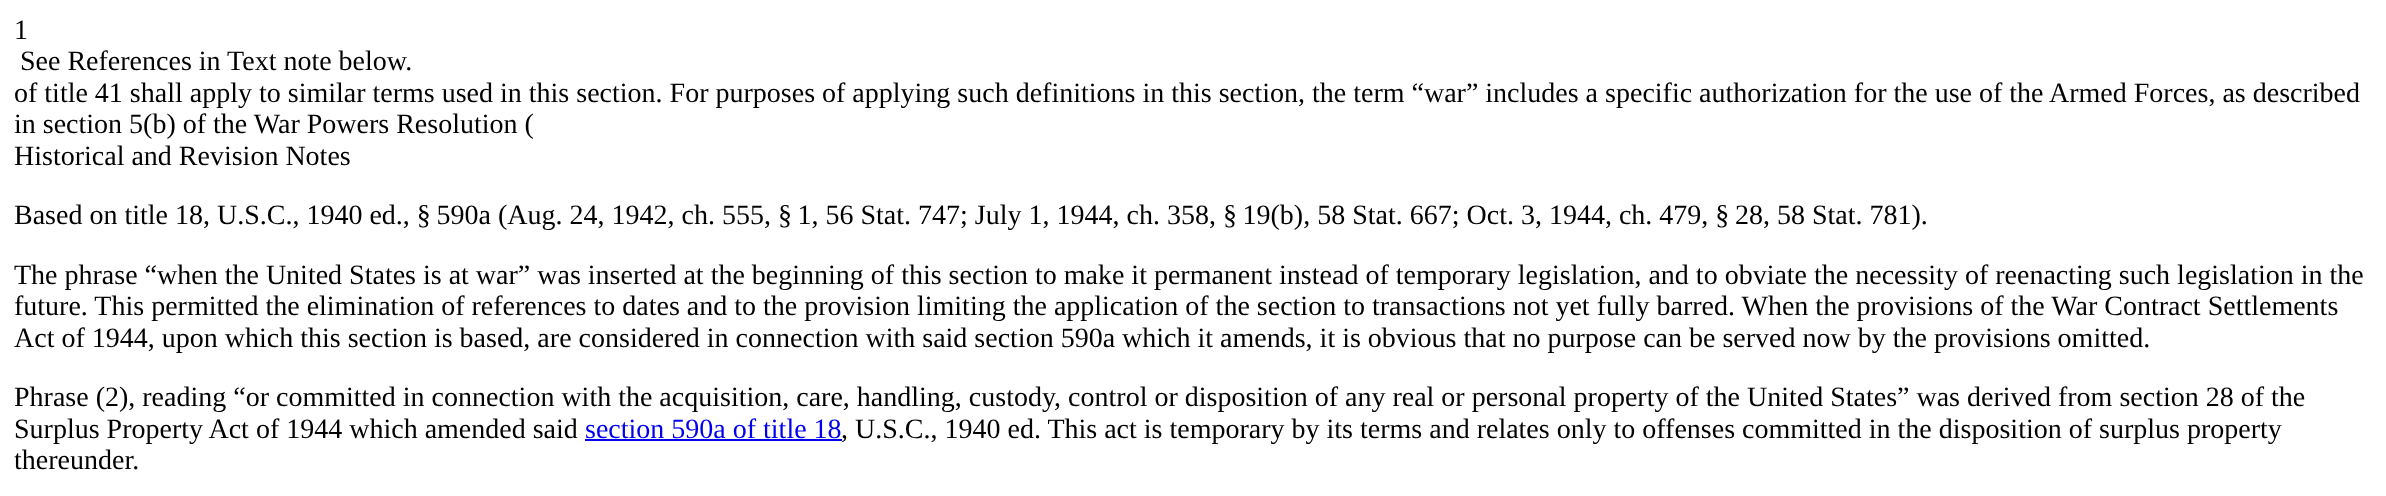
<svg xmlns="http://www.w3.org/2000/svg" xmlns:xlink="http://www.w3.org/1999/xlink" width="2386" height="496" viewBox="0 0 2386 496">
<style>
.cls-1{font:28px Liberation Serif;fill:#000000}
.cls-2{font:28px Liberation Serif;fill:#0000ee}
</style>
<rect width="100%" height="100%" fill="#ffffff"/>
<rect fill="#0000ee" x="585" y="439" width="257" height="2"/>
<text class="cls-1" x="14" y="39">1</text>
<text class="cls-1" x="20" y="70">See References in Text note below.</text>
<text class="cls-1"><tspan x="14" y="102">of title 41 shall apply to similar terms used in this section. For purposes of applying such definitions in this section, the term “war” includes a specific authorization for the use of the Armed Forces, as described</tspan><tspan x="14" y="133">in section 5(b) of the War Powers Resolution (</tspan><tspan x="14" y="165">Historical and Revision Notes</tspan></text>
<text class="cls-1" x="14" y="224">Based on title 18, U.S.C., 1940 ed., § 590a (Aug. 24, 1942, ch. 555, § 1, 56 Stat. 747; July 1, 1944, ch. 358, § 19(b), 58 Stat. 667; Oct. 3, 1944, ch. 479, § 28, 58 Stat. 781).</text>
<text class="cls-1"><tspan x="14" y="284">The phrase “when the United States is at war” was inserted at the beginning of this section to make it permanent instead of temporary legislation, and to obviate the necessity of reenacting such legislation in the</tspan><tspan x="14" y="315">future. This permitted the elimination of references to dates and to the provision limiting the application of the section to transactions not yet fully barred. When the provisions of the War Contract Settlements</tspan><tspan x="14" y="347">Act of 1944, upon which this section is based, are considered in connection with said section 590a which it amends, it is obvious that no purpose can be served now by the provisions omitted.</tspan></text>
<text class="cls-1"><tspan x="14" y="406">Phrase (2), reading “or committed in connection with the acquisition, care, handling, custody, control or disposition of any real or personal property of the United States” was derived from section 28 of the</tspan><tspan x="14" y="438">Surplus Property Act of 1944 which amended said</tspan></text>
<text class="cls-2" x="585" y="438">section 590a of title 18</text>
<text class="cls-1" x="841" y="438">, U.S.C., 1940 ed. This act is temporary by its terms and relates only to offenses committed in the disposition of surplus property</text>
<text class="cls-1" x="14" y="469">thereunder.</text>
</svg>
